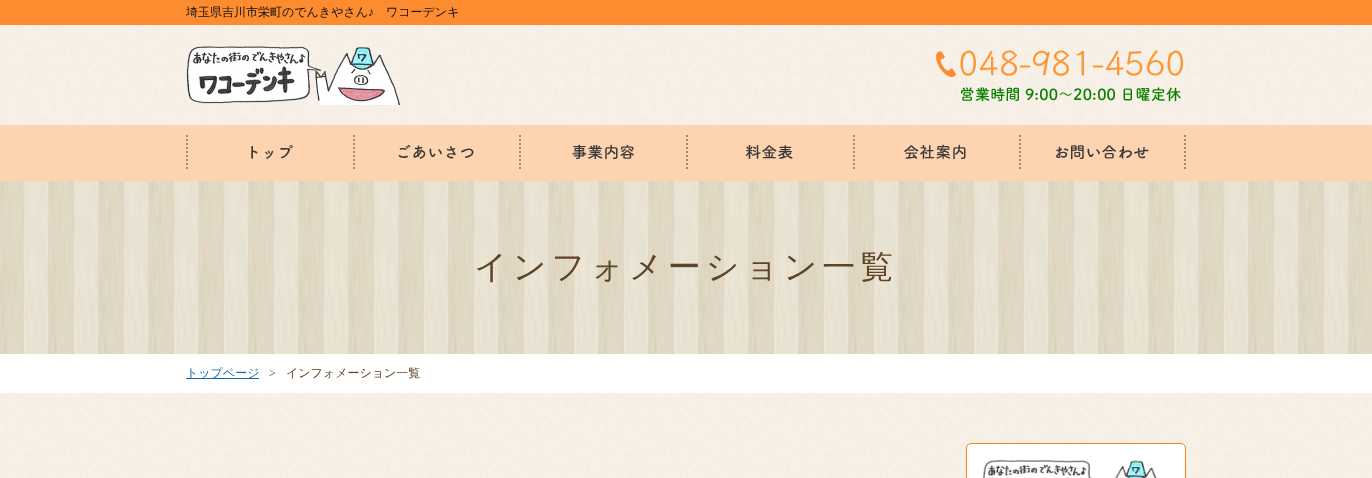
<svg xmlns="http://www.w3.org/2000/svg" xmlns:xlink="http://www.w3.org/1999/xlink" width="1372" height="478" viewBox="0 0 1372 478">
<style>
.cls-1{font:500 12px WenQuanYi Zen Hei;fill:#111111}
.cls-2{font:12px Liberation Serif;fill:#111111}
.cls-3{font:500 33px WenQuanYi Zen Hei;letter-spacing:5px;fill:#5f4425}
.cls-4{font:500 12px WenQuanYi Zen Hei;fill:#1068ab}
.cls-5{font:12px Liberation Serif;fill:#5f4425}
.cls-6{font:500 12px WenQuanYi Zen Hei;fill:#5f4425}
</style>
<rect width="100%" height="100%" fill="#ffffff"/>
<image xlink:href="image0.png" x="0" y="393" width="1372" height="85"/>
<image xlink:href="image1.png" x="0" y="25" width="1372" height="100"/>
<rect fill="#fd8b2f" x="0" y="0" width="1372" height="25"/>
<image xlink:href="image2.png" x="186" y="46" width="215" height="59"/>
<image xlink:href="image3.png" x="936" y="50" width="247" height="52"/>
<rect fill="#fed3b0" x="0" y="125" width="1372" height="56"/>
<path fill="none" stroke="#af8852" stroke-width="2" stroke-dasharray="2 2" d="M187 135V171"/>
<image xlink:href="image4.png" x="251" y="145" width="42" height="14"/>
<path fill="none" stroke="#af8852" stroke-width="2" stroke-dasharray="2 2" d="M354 135V171"/>
<image xlink:href="image5.png" x="398" y="145" width="76" height="14"/>
<path fill="none" stroke="#af8852" stroke-width="2" stroke-dasharray="2 2" d="M520 135V171"/>
<image xlink:href="image6.png" x="572" y="144" width="62" height="16"/>
<path fill="none" stroke="#af8852" stroke-width="2" stroke-dasharray="2 2" d="M687 135V171"/>
<image xlink:href="image7.png" x="745" y="145" width="48" height="14"/>
<path fill="none" stroke="#af8852" stroke-width="2" stroke-dasharray="2 2" d="M854 135V171"/>
<image xlink:href="image8.png" x="904" y="144" width="62" height="16"/>
<path fill="none" stroke="#af8852" stroke-width="2" stroke-dasharray="2 2" d="M1185 135V171"/>
<path fill="none" stroke="#af8852" stroke-width="2" stroke-dasharray="2 2" d="M1020 135V171"/>
<image xlink:href="image9.png" x="1056" y="145" width="93" height="15"/>
<image xlink:href="image10.png" x="0" y="181" width="1372" height="173"/>
<rect fill="#1068ab" x="186" y="378" width="73" height="1"/>
<rect fill="#ffffff" stroke="#f58419" x="966.5" y="443.5" width="219" height="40" rx="4.5"/>
<image xlink:href="image11.png" x="982" y="459" width="175" height="19"/>
<text class="cls-1" x="186" y="16">埼玉県吉川市栄町のでんきやさん</text>
<text class="cls-2" x="368" y="16">♪</text>
<text class="cls-1" x="386" y="16">ワコーデンキ</text>
<text class="cls-3" x="474" y="278">インフォメーション一覧</text>
<text class="cls-4" x="186" y="377">トップページ</text>
<text class="cls-5" x="269" y="377">&gt;</text>
<text class="cls-6" x="286" y="377">インフォメーション一覧</text>
</svg>
